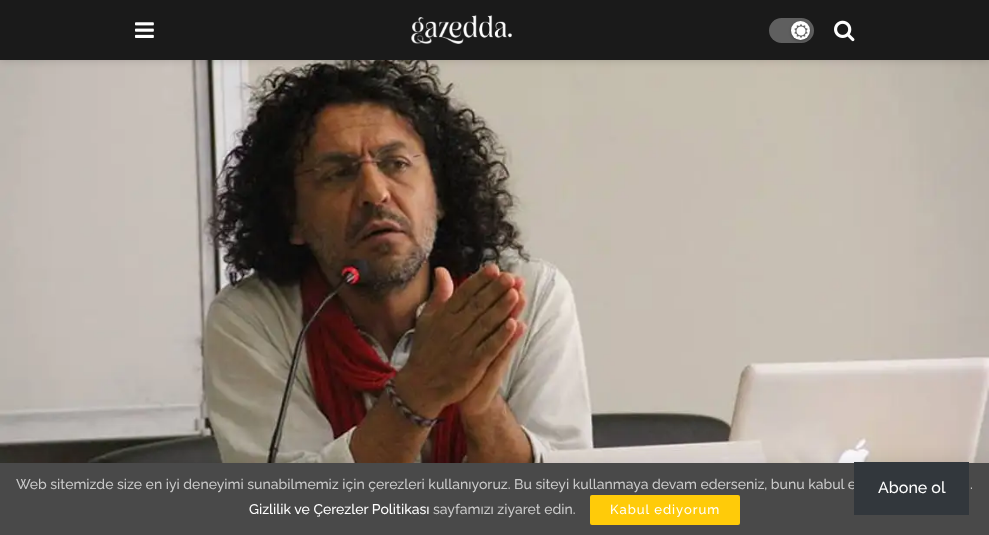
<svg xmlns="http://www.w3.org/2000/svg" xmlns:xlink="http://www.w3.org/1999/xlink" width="989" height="535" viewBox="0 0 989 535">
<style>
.cls-1{font:500 14px Raleway;fill:#cacaca}
.cls-2{font:500 14px Raleway;fill:#ffffff}
.cls-3{font:500 13px Raleway;letter-spacing:1px;fill:#ffffff}
.cls-4{font:500 16px Raleway;fill:#ffffff}
</style>
<rect width="100%" height="100%" fill="#ffffff"/>
<image xlink:href="image4.png" x="0" y="60" width="989" height="403"/>
<rect fill="#000000" fill-opacity="0.1" filter="blur(3px)" x="0" y="2" width="989" height="60"/>
<rect fill="#1a1a1a" x="0" y="0" width="989" height="60"/>
<image xlink:href="image0.png" x="135" y="22" width="19" height="16"/>
<image xlink:href="image1.png" x="411" y="15" width="101" height="29"/>
<rect fill="#5f5f5f" x="769" y="18" width="45" height="25" rx="12.5"/>
<rect fill="#000000" fill-opacity="0.3" filter="blur(1.5px)" x="791" y="22" width="19" height="19" rx="9.5"/>
<circle fill="#ffffff" cx="800.5" cy="30.5" r="9.5"/>
<image xlink:href="image2.png" x="794" y="24" width="14" height="14"/>
<image xlink:href="image3.png" x="834" y="20" width="21" height="22"/>
<rect fill="#000000" fill-opacity="0.15" filter="blur(10px)" x="0" y="465" width="989" height="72"/>
<rect fill="#000000" fill-opacity="0.2" filter="blur(0.5px)" x="0" y="463" width="989" height="72"/>
<rect fill="#494949" x="0" y="463" width="989" height="72"/>
<rect fill="#ffcb09" x="590" y="495" width="150" height="30" rx="2"/>
<text class="cls-1" x="16" y="489">Web sitemizde size en iyi deneyimi sunabilmemiz için çerezleri kullanıyoruz. Bu siteyi kullanmaya devam ederseniz, bunu kabul e</text>
<text class="cls-1" x="970" y="489">.</text>
<text class="cls-2" x="249" y="514">Gizlilik ve Çerezler Politikası</text>
<text class="cls-1" x="433" y="514">sayfamızı ziyaret edin.</text>
<text class="cls-3" x="610" y="514">Kabul ediyorum</text>
<rect fill="#32373c" x="854" y="462" width="115" height="53"/>
<text class="cls-4" x="878" y="493">Abone ol</text>
</svg>
